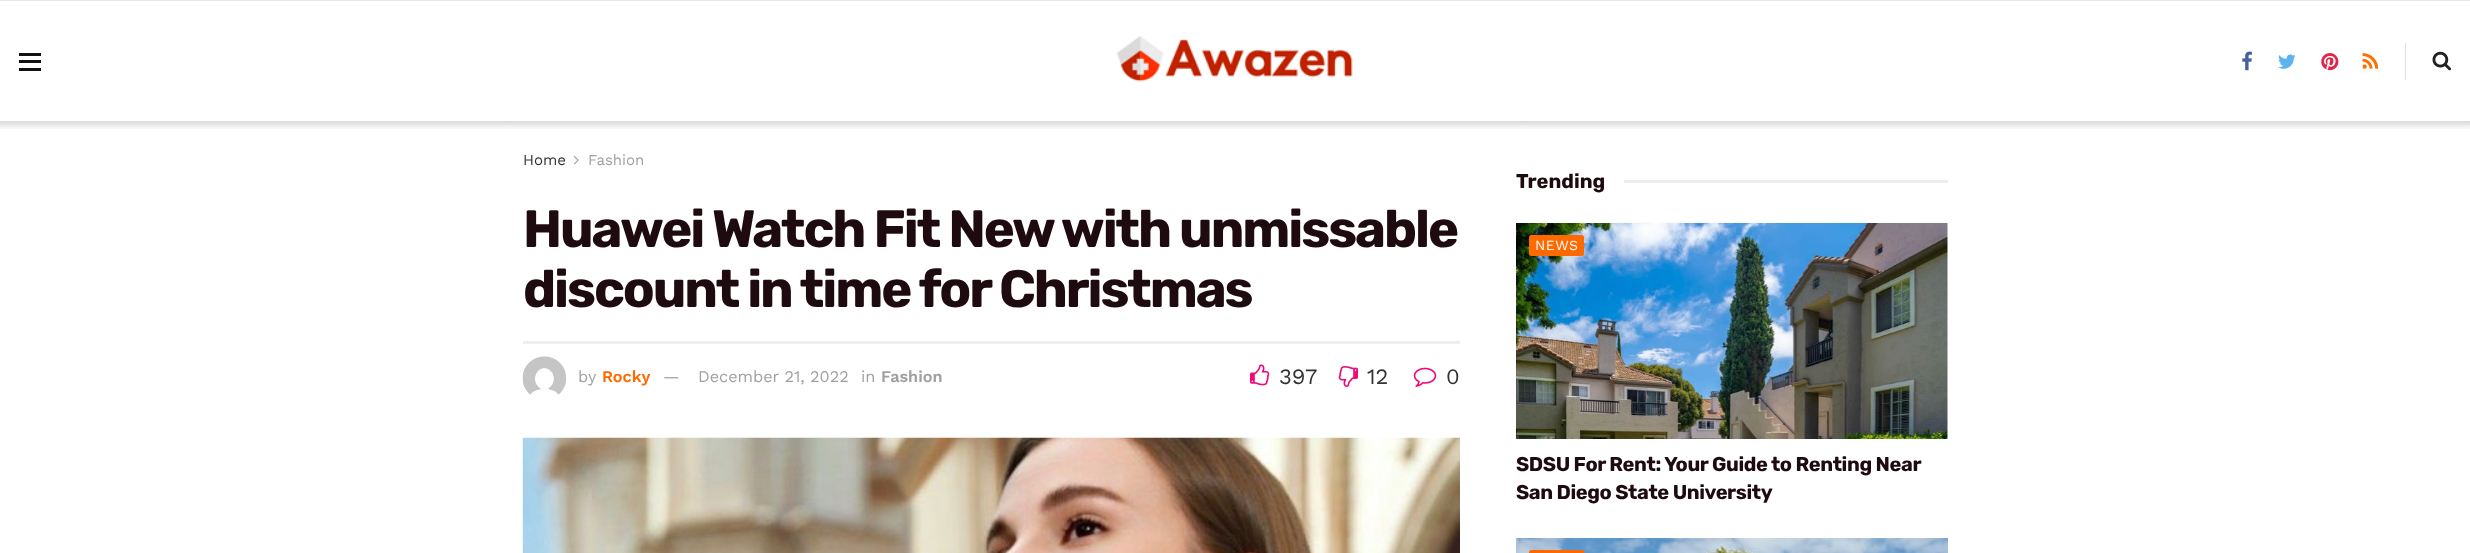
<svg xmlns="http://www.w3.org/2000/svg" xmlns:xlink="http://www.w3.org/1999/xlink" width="2470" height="553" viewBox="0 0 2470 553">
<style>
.cls-1{font:15px Work Sans;fill:#333333}
.cls-2{font:15px Work Sans;fill:#a0a0a0}
.cls-3{font:bold 52.5px Rubik;letter-spacing:-2.1px;fill:#1e0b0f}
.cls-4{font:16.25px Work Sans;fill:#a0a0a0}
.cls-5{font:600 16.25px Work Sans;fill:#ff6a00}
.cls-6{font:600 16.25px Work Sans;fill:#a0a0a0}
.cls-7{font:22px Work Sans;fill:#333333}
.cls-8{font:bold 20px Rubik;fill:#1e0b0f}
.cls-9{font:14px Work Sans;letter-spacing:0.5px;fill:#ffffff}
.cls-10{font:bold 20px Rubik;letter-spacing:-0.4px;fill:#1e0b0f}
</style>
<defs>
<linearGradient id="g1" gradientUnits="userSpaceOnUse" x1="1235" y1="121" x2="1235" y2="130"><stop offset="0" stop-color="#d9d9d9"/><stop offset="1" stop-color="#ffffff"/></linearGradient>
</defs>
<rect width="100%" height="100%" fill="#ffffff"/>
<rect fill="#e8e8e8" x="0" y="0" width="2470" height="1"/>
<rect fill="#111111" x="19" y="53" width="22" height="3"/>
<rect fill="#111111" x="19" y="60" width="22" height="3"/>
<rect fill="#111111" x="19" y="68" width="22" height="3"/>
<image xlink:href="image0.png" x="1116" y="36" width="237" height="46"/>
<image xlink:href="image1.png" x="2242" y="51" width="10" height="20"/>
<image xlink:href="image2.png" x="2278" y="54" width="18" height="15"/>
<image xlink:href="image3.png" x="2321" y="53" width="18" height="18"/>
<image xlink:href="image4.png" x="2362" y="53" width="17" height="16"/>
<rect fill="#e0e0e0" x="2405" y="43" width="1" height="37"/>
<image xlink:href="image5.png" x="2432" y="51" width="19" height="20"/>
<rect fill="url(#g1)" x="0" y="121" width="2470" height="8"/>
<image xlink:href="image6.png" x="573" y="156" width="6" height="9"/>
<rect fill="#eeeeee" x="523" y="341" width="937" height="3"/>
<image xlink:href="image7.png" x="522" y="356" width="45" height="39"/>
<image xlink:href="image8.png" x="1250" y="364" width="20" height="22"/>
<image xlink:href="image9.png" x="1338" y="366" width="20" height="21"/>
<image xlink:href="image10.png" x="1413" y="367" width="24" height="20"/>
<image xlink:href="image11.png" x="522" y="437" width="938" height="116"/>
<rect fill="#eeeeee" x="1624" y="180" width="324" height="3"/>
<rect fill="#f7f7f7" x="1947" y="223" width="1" height="216"/>
<rect fill="#fbfbfb" x="1517" y="222" width="430" height="1"/>
<image xlink:href="image12.png" x="1516" y="223" width="432" height="216"/>
<rect fill="#ff6a00" x="1529" y="235" width="55" height="21" rx="2.5"/>
<image xlink:href="image13.png" x="1516" y="538" width="432" height="15"/>
<rect fill="#ff6a00" x="1529" y="550" width="55" height="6" rx="2.5"/>
<text class="cls-1" x="523" y="165">Home</text>
<text class="cls-2" x="588" y="165">Fashion</text>
<text class="cls-3"><tspan x="523" y="247">Huawei Watch Fit New with unmissable</tspan><tspan x="523" y="307">discount in time for Christmas</tspan></text>
<text class="cls-4" x="578" y="382">by</text>
<text class="cls-5" x="602" y="382">Rocky</text>
<text class="cls-4" x="663" y="382">—</text>
<text class="cls-4" x="698" y="382">December 21, 2022</text>
<text class="cls-4" x="861" y="382">in</text>
<text class="cls-6" x="881" y="382">Fashion</text>
<text class="cls-7" x="1279" y="384">397</text>
<text class="cls-7" x="1367" y="384">12</text>
<text class="cls-7" x="1446" y="384">0</text>
<text class="cls-8" x="1516" y="188">Trending</text>
<text class="cls-9" x="1535" y="250">NEWS</text>
<text class="cls-10"><tspan x="1516" y="471">SDSU For Rent: Your Guide to Renting Near</tspan><tspan x="1516" y="499">San Diego State University</tspan></text>
</svg>
